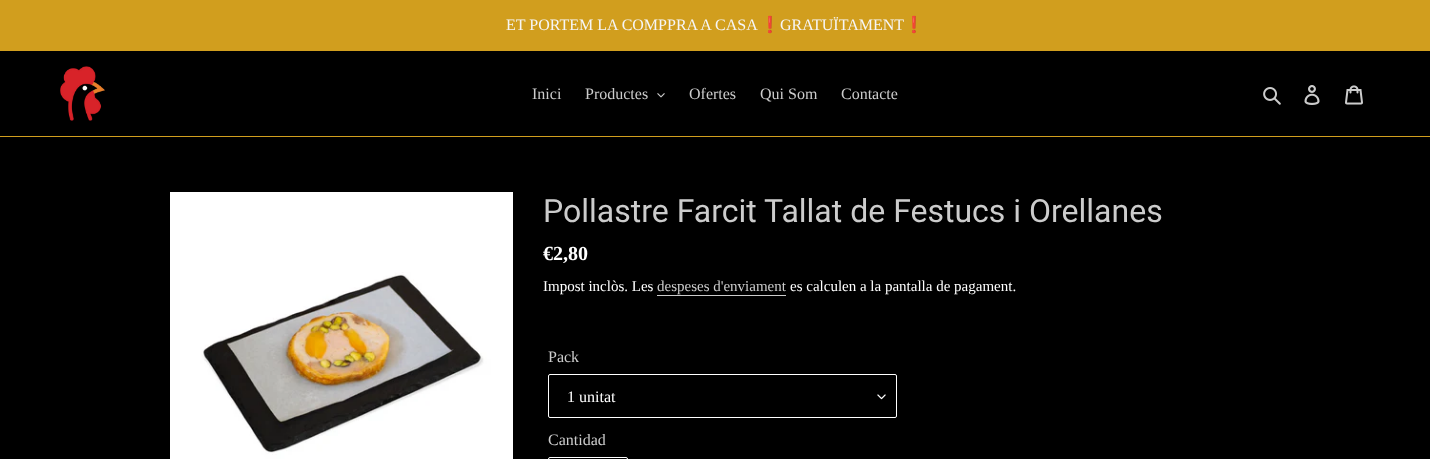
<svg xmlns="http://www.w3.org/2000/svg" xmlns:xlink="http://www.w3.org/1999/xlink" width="1430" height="459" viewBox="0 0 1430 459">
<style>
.cls-1{font:16px Liberation Serif;fill:#f6f6f6}
.cls-2{font:16px Noto Color Emoji;fill:#f6f6f6}
.cls-3{font:16px Liberation Serif;fill:#cccccc}
.cls-4{font:32px Roboto;fill:#cccccc}
.cls-5{font:bold 20px Liberation Serif;fill:#ffffff}
.cls-6{font:15px Liberation Serif;fill:#ffffff}
.cls-7{font:15px Liberation Serif;fill:#cccccc}
.cls-8{font:16px Liberation Serif;fill:#ffffff}
</style>
<rect width="100%" height="100%" fill="#000000"/>
<rect fill="#d19e1e" x="0" y="0" width="1430" height="51"/>
<rect fill="#d19e1e" x="0" y="136" width="1430" height="1"/>
<image xlink:href="image0.png" x="60" y="66" width="45" height="55"/>
<image xlink:href="image1.png" x="657" y="93" width="8" height="5"/>
<image xlink:href="image2.png" x="1263" y="87" width="18" height="18"/>
<image xlink:href="image3.png" x="1304" y="85" width="16" height="20"/>
<image xlink:href="image4.png" x="1345" y="85" width="18" height="20"/>
<image xlink:href="image5.png" x="170" y="192" width="343" height="267"/>
<rect fill="#cccccc" x="657" y="295" width="129" height="1"/>
<image xlink:href="image6.png" x="877" y="394" width="9" height="6"/>
<rect fill="none" stroke="#ffffff" x="548.5" y="374.5" width="348" height="43" rx="1.5"/>
<rect fill="none" stroke="#ffffff" x="548.5" y="457.5" width="79" height="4" rx="1.5"/>
<text class="cls-1" x="506" y="30">ET PORTEM LA COMPPRA A CASA</text>
<text class="cls-2" x="760" y="30">❗️</text>
<text class="cls-1" x="780" y="30">GRATUÏTAMENT</text>
<text class="cls-2" x="904" y="30">❗️</text>
<text class="cls-3" x="532" y="99">Inici</text>
<text class="cls-3" x="585" y="99">Productes</text>
<text class="cls-3" x="689" y="99">Ofertes</text>
<text class="cls-3" x="760" y="99">Qui Som</text>
<text class="cls-3" x="841" y="99">Contacte</text>
<text class="cls-4" x="543" y="222">Pollastre Farcit Tallat de Festucs i Orellanes</text>
<text class="cls-5" x="543" y="260">€2,80</text>
<text class="cls-6" x="543" y="291">Impost inclòs. Les</text>
<text class="cls-7" x="657" y="291">despeses d'enviament</text>
<text class="cls-6" x="790" y="291">es calculen a la pantalla de pagament.</text>
<text class="cls-3" x="548" y="362">Pack</text>
<text class="cls-8" x="567" y="402">1 unitat</text>
<text class="cls-3" x="548" y="445">Cantidad</text>
</svg>
